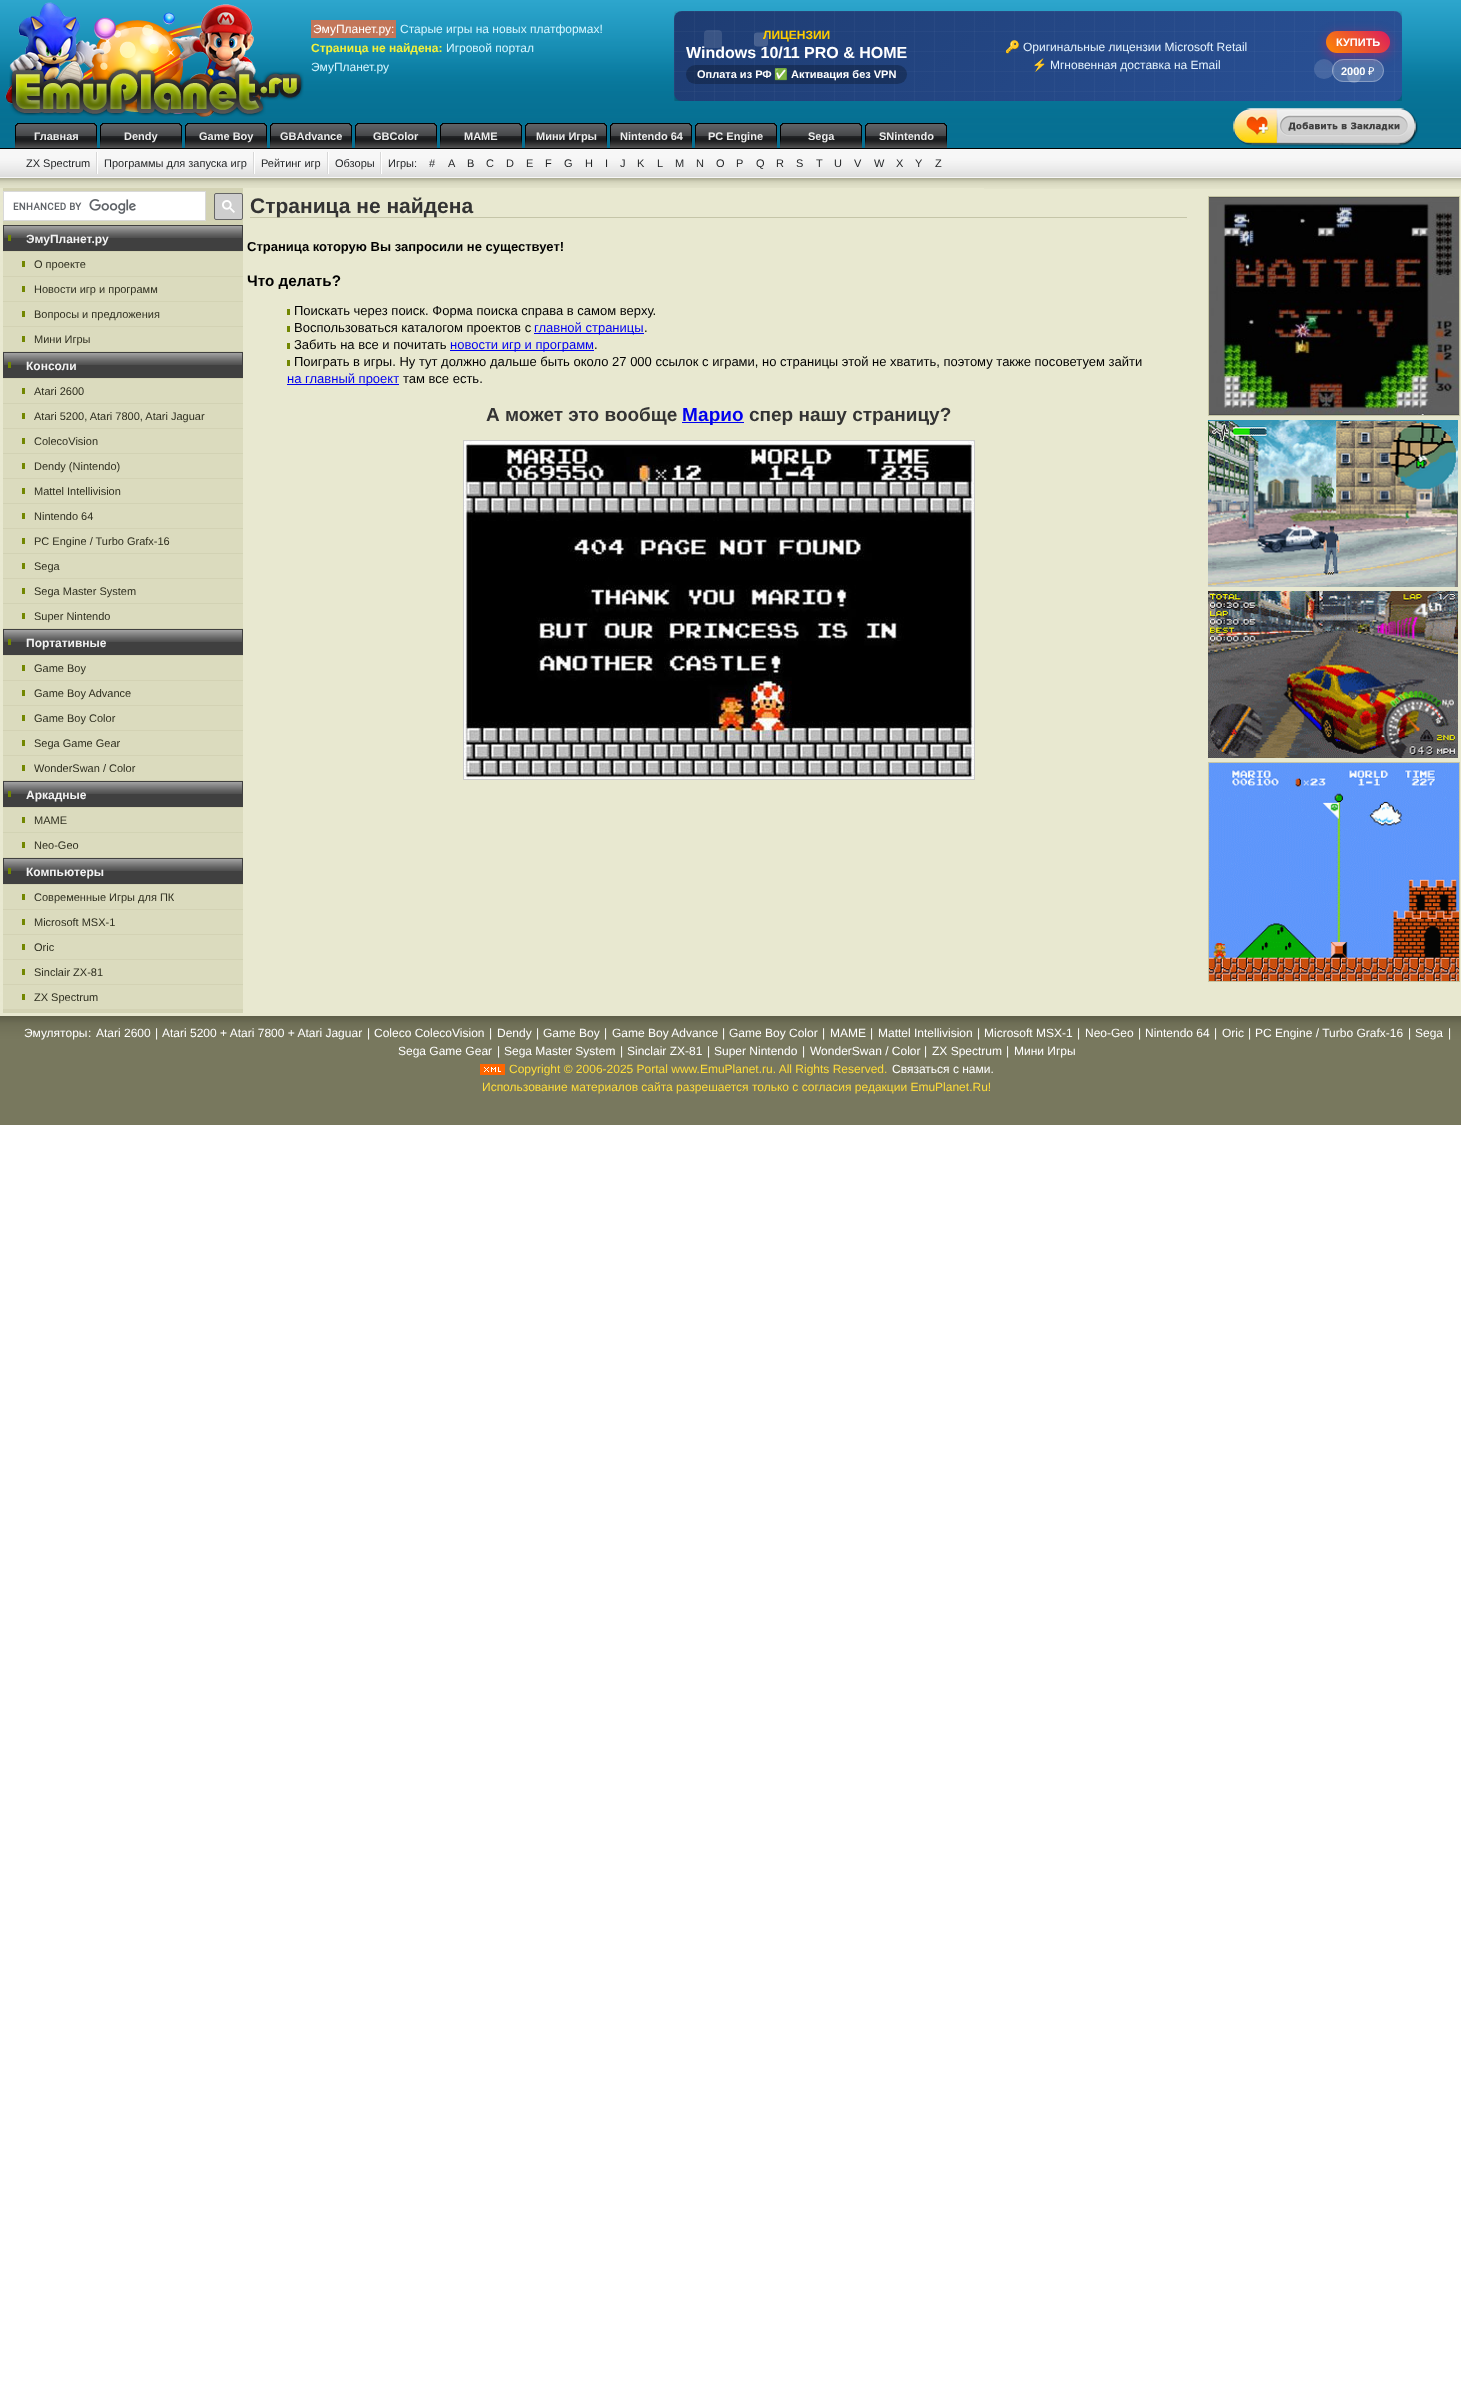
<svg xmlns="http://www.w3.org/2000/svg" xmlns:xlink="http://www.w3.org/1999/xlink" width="1461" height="2384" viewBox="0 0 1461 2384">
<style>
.cls-1{font:12px Liberation Sans;fill:#ffffff}
.cls-2{font:12px Liberation Sans;fill:#d4f5ff}
.cls-3{font:bold 12px Liberation Sans;fill:#f4f23c}
.cls-4{font:bold 12px Liberation Sans;fill:#ffcc00}
.cls-5{font:bold 16px Liberation Sans;fill:#ffffff}
.cls-6{font:bold 11px Liberation Sans;fill:#ffffff}
.cls-7{font:bold 11px Noto Color Emoji;fill:#ffffff}
.cls-8{font:12px Noto Color Emoji;fill:#e3f2fd}
.cls-9{font:12px Liberation Sans;fill:#e3f2fd}
.cls-10{font:11px Noto Sans;fill:#ffffff}
.cls-11{font:bold 11px Liberation Sans;fill:#ebebeb}
.cls-12{font:11px Liberation Sans;fill:#1f2123}
.cls-13{font:bold 12px Liberation Sans;fill:#f3f3f3}
.cls-14{font:11px Liberation Sans;fill:#2f2f20}
.cls-15{font:bold 21px Liberation Sans;fill:#333333}
.cls-16{font:bold 13px Liberation Sans;fill:#000000}
.cls-17{font:bold 15.25px Liberation Sans;fill:#000000}
.cls-18{font:13px Liberation Sans;fill:#000000}
.cls-19{font:13px Liberation Sans;fill:#0000ee}
.cls-20{font:bold 19px Liberation Sans;fill:#333333}
.cls-21{font:bold 19px Liberation Sans;fill:#0000ee}
.cls-22{font:12px Liberation Sans;fill:#fedc3b}
</style>
<defs>
<clipPath id="clip1"><rect x="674" y="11" width="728" height="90"/></clipPath>
<linearGradient id="g1" gradientUnits="userSpaceOnUse" x1="834" y1="-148" x2="1243" y2="261"><stop offset="0" stop-color="#1e3c72"/><stop offset="1" stop-color="#2a5298"/></linearGradient>
<linearGradient id="g2" gradientUnits="userSpaceOnUse" x1="1337" y1="64" x2="1380" y2="21"><stop offset="0" stop-color="#ff8a00"/><stop offset="1" stop-color="#da1b60"/></linearGradient>
</defs>
<rect width="100%" height="100%" fill="#ffffff"/>
<image xlink:href="image0.png" x="0" y="0" width="1461" height="178"/>
<image xlink:href="image1.png" x="5" y="2" width="299" height="115"/>
<rect fill="#c37659" x="311" y="20" width="85" height="18"/>
<image xlink:href="image3.png" x="610" y="123" width="82" height="25"/>
<image xlink:href="image3.png" x="695" y="123" width="82" height="25"/>
<image xlink:href="image3.png" x="780" y="123" width="82" height="25"/>
<image xlink:href="image3.png" x="865" y="123" width="82" height="25"/>
<g clip-path="url(#clip1)">
<rect fill="#000000" fill-opacity="0.4" filter="blur(7.5px)" x="674" y="15" width="728" height="90" rx="8"/>
</g>
<rect fill="url(#g1)" x="674" y="11" width="728" height="90" rx="8"/>
<image xlink:href="image2.png" x="674" y="11" width="728" height="90"/>
<rect fill="#000000" fill-opacity="0.25" x="686" y="65" width="221" height="19" rx="9.5"/>
<rect fill="#da1b60" fill-opacity="0.5" filter="blur(6px)" x="1326" y="34" width="64" height="22" rx="11"/>
<rect fill="url(#g2)" x="1326" y="31" width="64" height="22" rx="11"/>
<rect fill="#ffffff" fill-opacity="0.2" x="1332" y="59" width="52" height="23" rx="11.5"/>
<rect fill="none" stroke="#ffffff" stroke-opacity="0.3" x="1332.5" y="59.5" width="51" height="22" rx="11"/>
<image xlink:href="image3.png" x="15" y="123" width="82" height="25"/>
<image xlink:href="image3.png" x="100" y="123" width="82" height="25"/>
<image xlink:href="image3.png" x="185" y="123" width="82" height="25"/>
<image xlink:href="image3.png" x="270" y="123" width="82" height="25"/>
<image xlink:href="image3.png" x="355" y="123" width="82" height="25"/>
<image xlink:href="image3.png" x="440" y="123" width="82" height="25"/>
<image xlink:href="image3.png" x="525" y="123" width="82" height="25"/>
<image xlink:href="image4.png" x="1233" y="108" width="185" height="39"/>
<image xlink:href="image5.png" x="96" y="152" width="2" height="22"/>
<image xlink:href="image5.png" x="253" y="152" width="2" height="22"/>
<image xlink:href="image5.png" x="327" y="152" width="2" height="22"/>
<image xlink:href="image5.png" x="380" y="152" width="2" height="22"/>
<rect fill="#e8e8d0" x="0" y="189" width="1461" height="827"/>
<image xlink:href="image6.png" x="0" y="178" width="1461" height="11"/>
<image xlink:href="image7.png" x="0" y="188" width="984" height="825"/>
<rect fill="#ffffff" stroke="#d9d9d9" x="3.5" y="191.5" width="202" height="29"/>
<image xlink:href="image8.png" x="13" y="199" width="123" height="15"/>
<rect fill="#cecece" stroke="#666666" x="214.5" y="193.5" width="28" height="26" rx="1.5"/>
<image xlink:href="image9.png" x="222" y="200" width="13" height="13"/>
<image xlink:href="image10.png" x="4" y="225" width="238" height="26"/>
<rect fill="#404040" x="242" y="225" width="1" height="26"/>
<rect fill="#404040" x="3" y="225" width="1" height="26"/>
<rect fill="#728701" x="8" y="235" width="3" height="6"/>
<rect fill="#dbdbbe" x="3" y="252" width="240" height="24"/>
<rect fill="#728701" x="22" y="261" width="3" height="6"/>
<rect fill="#dbdbbe" x="3" y="277" width="240" height="24"/>
<rect fill="#728701" x="22" y="286" width="3" height="6"/>
<rect fill="#dbdbbe" x="3" y="302" width="240" height="24"/>
<rect fill="#728701" x="22" y="311" width="3" height="6"/>
<rect fill="#dbdbbe" x="3" y="327" width="240" height="24"/>
<rect fill="#728701" x="22" y="336" width="3" height="6"/>
<image xlink:href="image10.png" x="4" y="352" width="238" height="26"/>
<rect fill="#404040" x="242" y="352" width="1" height="26"/>
<rect fill="#404040" x="3" y="352" width="1" height="26"/>
<rect fill="#728701" x="8" y="362" width="3" height="6"/>
<rect fill="#dbdbbe" x="3" y="379" width="240" height="24"/>
<rect fill="#728701" x="22" y="388" width="3" height="6"/>
<rect fill="#dbdbbe" x="3" y="404" width="240" height="24"/>
<rect fill="#728701" x="22" y="413" width="3" height="6"/>
<rect fill="#dbdbbe" x="3" y="429" width="240" height="24"/>
<rect fill="#728701" x="22" y="438" width="3" height="6"/>
<rect fill="#dbdbbe" x="3" y="454" width="240" height="24"/>
<rect fill="#728701" x="22" y="463" width="3" height="6"/>
<rect fill="#dbdbbe" x="3" y="479" width="240" height="24"/>
<rect fill="#728701" x="22" y="488" width="3" height="6"/>
<rect fill="#dbdbbe" x="3" y="504" width="240" height="24"/>
<rect fill="#728701" x="22" y="513" width="3" height="6"/>
<rect fill="#dbdbbe" x="3" y="529" width="240" height="24"/>
<rect fill="#728701" x="22" y="538" width="3" height="6"/>
<rect fill="#dbdbbe" x="3" y="554" width="240" height="24"/>
<rect fill="#728701" x="22" y="563" width="3" height="6"/>
<rect fill="#dbdbbe" x="3" y="579" width="240" height="24"/>
<rect fill="#728701" x="22" y="588" width="3" height="6"/>
<rect fill="#dbdbbe" x="3" y="604" width="240" height="24"/>
<rect fill="#728701" x="22" y="613" width="3" height="6"/>
<image xlink:href="image10.png" x="4" y="629" width="238" height="26"/>
<rect fill="#404040" x="242" y="629" width="1" height="26"/>
<rect fill="#404040" x="3" y="629" width="1" height="26"/>
<rect fill="#728701" x="8" y="639" width="3" height="6"/>
<rect fill="#dbdbbe" x="3" y="656" width="240" height="24"/>
<rect fill="#728701" x="22" y="665" width="3" height="6"/>
<rect fill="#dbdbbe" x="3" y="681" width="240" height="24"/>
<rect fill="#728701" x="22" y="690" width="3" height="6"/>
<rect fill="#dbdbbe" x="3" y="706" width="240" height="24"/>
<rect fill="#728701" x="22" y="715" width="3" height="6"/>
<rect fill="#dbdbbe" x="3" y="731" width="240" height="24"/>
<rect fill="#728701" x="22" y="740" width="3" height="6"/>
<rect fill="#dbdbbe" x="3" y="756" width="240" height="24"/>
<rect fill="#728701" x="22" y="765" width="3" height="6"/>
<image xlink:href="image10.png" x="4" y="781" width="238" height="26"/>
<rect fill="#404040" x="242" y="781" width="1" height="26"/>
<rect fill="#404040" x="3" y="781" width="1" height="26"/>
<rect fill="#728701" x="8" y="791" width="3" height="6"/>
<rect fill="#dbdbbe" x="3" y="808" width="240" height="24"/>
<rect fill="#728701" x="22" y="817" width="3" height="6"/>
<rect fill="#dbdbbe" x="3" y="833" width="240" height="24"/>
<rect fill="#728701" x="22" y="842" width="3" height="6"/>
<image xlink:href="image10.png" x="4" y="858" width="238" height="26"/>
<rect fill="#404040" x="242" y="858" width="1" height="26"/>
<rect fill="#404040" x="3" y="858" width="1" height="26"/>
<rect fill="#728701" x="8" y="868" width="3" height="6"/>
<rect fill="#dbdbbe" x="3" y="885" width="240" height="24"/>
<rect fill="#728701" x="22" y="894" width="3" height="6"/>
<rect fill="#dbdbbe" x="3" y="910" width="240" height="24"/>
<rect fill="#728701" x="22" y="919" width="3" height="6"/>
<rect fill="#dbdbbe" x="3" y="935" width="240" height="24"/>
<rect fill="#728701" x="22" y="944" width="3" height="6"/>
<rect fill="#dbdbbe" x="3" y="960" width="240" height="24"/>
<rect fill="#728701" x="22" y="969" width="3" height="6"/>
<rect fill="#dbdbbe" x="3" y="985" width="240" height="24"/>
<rect fill="#728701" x="22" y="994" width="3" height="6"/>
<rect fill="#c5c5a8" x="250" y="217" width="937" height="1"/>
<rect fill="#728701" x="287" y="309" width="3" height="6"/>
<rect fill="#728701" x="287" y="326" width="3" height="6"/>
<rect fill="#0000ee" x="534" y="333" width="110" height="1"/>
<rect fill="#728701" x="287" y="343" width="3" height="6"/>
<rect fill="#0000ee" x="450" y="350" width="144" height="1"/>
<rect fill="#728701" x="287" y="360" width="3" height="6"/>
<rect fill="#0000ee" x="287" y="384" width="112" height="1"/>
<rect fill="#0000ee" x="682" y="422" width="62" height="1"/>
<rect fill="none" stroke="#cccccc" x="463.5" y="440.5" width="511" height="339"/>
<image xlink:href="image11.png" x="464" y="441" width="510" height="338"/>
<rect fill="none" stroke="#c6c6a5" x="1208.5" y="196.5" width="251" height="219"/>
<image xlink:href="image12.png" x="1209" y="197" width="250" height="218"/>
<image xlink:href="image13.png" x="1208" y="420" width="250" height="167"/>
<image xlink:href="image14.png" x="1208" y="591" width="250" height="167"/>
<rect fill="none" stroke="#c6c6a5" x="1208.5" y="762.5" width="251" height="219"/>
<image xlink:href="image15.png" x="1209" y="763" width="250" height="218"/>
<image xlink:href="image16.png" x="0" y="1016" width="1461" height="109"/>
<image xlink:href="image17.png" x="480" y="1064" width="25" height="11"/>
<text class="cls-1" x="313" y="33">ЭмуПланет.ру:</text>
<text class="cls-2" x="400" y="33">Старые игры на новых платформах!</text>
<text class="cls-3" x="311" y="52">Страница не найдена:</text>
<text class="cls-2" x="446" y="52">Игровой портал</text>
<text class="cls-2" x="311" y="71">ЭмуПланет.ру</text>
<text class="cls-4" x="763" y="39">ЛИЦЕНЗИИ</text>
<text class="cls-5" x="686" y="58">Windows 10/11 PRO &amp; HOME</text>
<text class="cls-6" x="697" y="78">Оплата из РФ</text>
<text class="cls-7" x="774" y="78">✅</text>
<text class="cls-6" x="791" y="78">Активация без VPN</text>
<text class="cls-8" x="1005" y="51">🔑</text>
<text class="cls-9" x="1023" y="51">Оригинальные лицензии Microsoft Retail</text>
<text class="cls-8" x="1032" y="69">⚡</text>
<text class="cls-9" x="1050" y="69">Мгновенная доставка на Email</text>
<text class="cls-6" x="1336" y="46">КУПИТЬ</text>
<text class="cls-6" x="1341" y="75">2000</text>
<text class="cls-10" x="1368" y="75">₽</text>
<text class="cls-11" x="34" y="140">Главная</text>
<text class="cls-11" x="124" y="140">Dendy</text>
<text class="cls-11" x="199" y="140">Game Boy</text>
<text class="cls-11" x="280" y="140">GBAdvance</text>
<text class="cls-11" x="373" y="140">GBColor</text>
<text class="cls-11" x="464" y="140">MAME</text>
<text class="cls-11" x="536" y="140">Мини Игры</text>
<text class="cls-11" x="620" y="140">Nintendo 64</text>
<text class="cls-11" x="708" y="140">PC Engine</text>
<text class="cls-11" x="808" y="140">Sega</text>
<text class="cls-11" x="879" y="140">SNintendo</text>
<text class="cls-12" x="26" y="167">ZX Spectrum</text>
<text class="cls-12" x="104" y="167">Программы для запуска игр</text>
<text class="cls-12" x="261" y="167">Рейтинг игр</text>
<text class="cls-12" x="335" y="167">Обзоры</text>
<text class="cls-12" x="388" y="167">Игры:</text>
<text class="cls-12" x="429" y="167">#</text>
<text class="cls-12" x="448" y="167">A</text>
<text class="cls-12" x="467" y="167">B</text>
<text class="cls-12" x="486" y="167">C</text>
<text class="cls-12" x="506" y="167">D</text>
<text class="cls-12" x="526" y="167">E</text>
<text class="cls-12" x="545" y="167">F</text>
<text class="cls-12" x="564" y="167">G</text>
<text class="cls-12" x="585" y="167">H</text>
<text class="cls-12" x="605" y="167">I</text>
<text class="cls-12" x="620" y="167">J</text>
<text class="cls-12" x="637" y="167">K</text>
<text class="cls-12" x="657" y="167">L</text>
<text class="cls-12" x="675" y="167">M</text>
<text class="cls-12" x="696" y="167">N</text>
<text class="cls-12" x="716" y="167">O</text>
<text class="cls-12" x="736" y="167">P</text>
<text class="cls-12" x="756" y="167">Q</text>
<text class="cls-12" x="776" y="167">R</text>
<text class="cls-12" x="796" y="167">S</text>
<text class="cls-12" x="816" y="167">T</text>
<text class="cls-12" x="834" y="167">U</text>
<text class="cls-12" x="854" y="167">V</text>
<text class="cls-12" x="874" y="167">W</text>
<text class="cls-12" x="896" y="167">X</text>
<text class="cls-12" x="915" y="167">Y</text>
<text class="cls-12" x="935" y="167">Z</text>
<text class="cls-13" x="26" y="243">ЭмуПланет.ру</text>
<text class="cls-14" x="34" y="268">О проекте</text>
<text class="cls-14" x="34" y="293">Новости игр и программ</text>
<text class="cls-14" x="34" y="318">Вопросы и предложения</text>
<text class="cls-14" x="34" y="343">Мини Игры</text>
<text class="cls-13" x="26" y="370">Консоли</text>
<text class="cls-14" x="34" y="395">Atari 2600</text>
<text class="cls-14" x="34" y="420">Atari 5200, Atari 7800, Atari Jaguar</text>
<text class="cls-14" x="34" y="445">ColecoVision</text>
<text class="cls-14" x="34" y="470">Dendy (Nintendo)</text>
<text class="cls-14" x="34" y="495">Mattel Intellivision</text>
<text class="cls-14" x="34" y="520">Nintendo 64</text>
<text class="cls-14" x="34" y="545">PC Engine / Turbo Grafx-16</text>
<text class="cls-14" x="34" y="570">Sega</text>
<text class="cls-14" x="34" y="595">Sega Master System</text>
<text class="cls-14" x="34" y="620">Super Nintendo</text>
<text class="cls-13" x="26" y="647">Портативные</text>
<text class="cls-14" x="34" y="672">Game Boy</text>
<text class="cls-14" x="34" y="697">Game Boy Advance</text>
<text class="cls-14" x="34" y="722">Game Boy Color</text>
<text class="cls-14" x="34" y="747">Sega Game Gear</text>
<text class="cls-14" x="34" y="772">WonderSwan / Color</text>
<text class="cls-13" x="26" y="799">Аркадные</text>
<text class="cls-14" x="34" y="824">MAME</text>
<text class="cls-14" x="34" y="849">Neo-Geo</text>
<text class="cls-13" x="26" y="876">Компьютеры</text>
<text class="cls-14" x="34" y="901">Современные Игры для ПК</text>
<text class="cls-14" x="34" y="926">Microsoft MSX-1</text>
<text class="cls-14" x="34" y="951">Oric</text>
<text class="cls-14" x="34" y="976">Sinclair ZX-81</text>
<text class="cls-14" x="34" y="1001">ZX Spectrum</text>
<text class="cls-15" x="250" y="213">Страница не найдена</text>
<text class="cls-16" x="247" y="251">Страница которую Вы запросили не существует!</text>
<text class="cls-17" x="247" y="286">Что делать?</text>
<text class="cls-18"><tspan x="294" y="315">Поискать через поиск. Форма поиска справа в самом верху.</tspan><tspan x="294" y="332">Воспользоваться каталогом проектов с</tspan></text>
<text class="cls-19" x="534" y="332">главной страницы</text>
<text class="cls-18" x="644" y="332">.</text>
<text class="cls-18" x="294" y="349">Забить на все и почитать</text>
<text class="cls-19" x="450" y="349">новости игр и программ</text>
<text class="cls-18" x="594" y="349">.</text>
<text class="cls-18" x="294" y="366">Поиграть в игры. Ну тут должно дальше быть около 27 000 ссылок с играми, но страницы этой не хватить, поэтому также посоветуем зайти</text>
<text class="cls-19" x="287" y="383">на главный проект</text>
<text class="cls-18" x="403" y="383">там все есть.</text>
<text class="cls-20" x="486" y="421">А может это вообще</text>
<text class="cls-21" x="682" y="421">Марио</text>
<text class="cls-20" x="749" y="421">спер нашу страницу?</text>
<text class="cls-1" x="24" y="1037">Эмуляторы</text>
<text class="cls-1" x="88" y="1037">:</text>
<text class="cls-1" x="96" y="1037">Atari 2600</text>
<text class="cls-1" x="155" y="1037">|</text>
<text class="cls-1" x="162" y="1037">Atari 5200 + Atari 7800 + Atari Jaguar</text>
<text class="cls-1" x="367" y="1037">|</text>
<text class="cls-1" x="374" y="1037">Coleco ColecoVision</text>
<text class="cls-1" x="489" y="1037">|</text>
<text class="cls-1" x="497" y="1037">Dendy</text>
<text class="cls-1" x="536" y="1037">|</text>
<text class="cls-1" x="543" y="1037">Game Boy</text>
<text class="cls-1" x="604" y="1037">|</text>
<text class="cls-1" x="612" y="1037">Game Boy Advance</text>
<text class="cls-1" x="722" y="1037">|</text>
<text class="cls-1" x="729" y="1037">Game Boy Color</text>
<text class="cls-1" x="822" y="1037">|</text>
<text class="cls-1" x="830" y="1037">MAME</text>
<text class="cls-1" x="870" y="1037">|</text>
<text class="cls-1" x="878" y="1037">Mattel Intellivision</text>
<text class="cls-1" x="977" y="1037">|</text>
<text class="cls-1" x="984" y="1037">Microsoft MSX-1</text>
<text class="cls-1" x="1077" y="1037">|</text>
<text class="cls-1" x="1085" y="1037">Neo-Geo</text>
<text class="cls-1" x="1138" y="1037">|</text>
<text class="cls-1" x="1145" y="1037">Nintendo 64</text>
<text class="cls-1" x="1214" y="1037">|</text>
<text class="cls-1" x="1222" y="1037">Oric</text>
<text class="cls-1" x="1248" y="1037">|</text>
<text class="cls-1" x="1255" y="1037">PC Engine / Turbo Grafx-16</text>
<text class="cls-1" x="1408" y="1037">|</text>
<text class="cls-1" x="1415" y="1037">Sega</text>
<text class="cls-1" x="1448" y="1037">|</text>
<text class="cls-1" x="398" y="1055">Sega Game Gear</text>
<text class="cls-1" x="497" y="1055">|</text>
<text class="cls-1" x="504" y="1055">Sega Master System</text>
<text class="cls-1" x="620" y="1055">|</text>
<text class="cls-1" x="627" y="1055">Sinclair ZX-81</text>
<text class="cls-1" x="707" y="1055">|</text>
<text class="cls-1" x="714" y="1055">Super Nintendo</text>
<text class="cls-1" x="802" y="1055">|</text>
<text class="cls-1" x="810" y="1055">WonderSwan / Color</text>
<text class="cls-1" x="924" y="1055">|</text>
<text class="cls-1" x="932" y="1055">ZX Spectrum</text>
<text class="cls-1" x="1006" y="1055">|</text>
<text class="cls-1" x="1014" y="1055">Мини Игры</text>
<text class="cls-22" x="509" y="1073">Copyright © 2006-2025 Portal www.EmuPlanet.ru. All Rights Reserved.</text>
<text class="cls-1" x="892" y="1073">Связаться с нами.</text>
<text class="cls-22" x="482" y="1091">Использование материалов сайта разрешается только с согласия редакции EmuPlanet.Ru!</text>
</svg>
